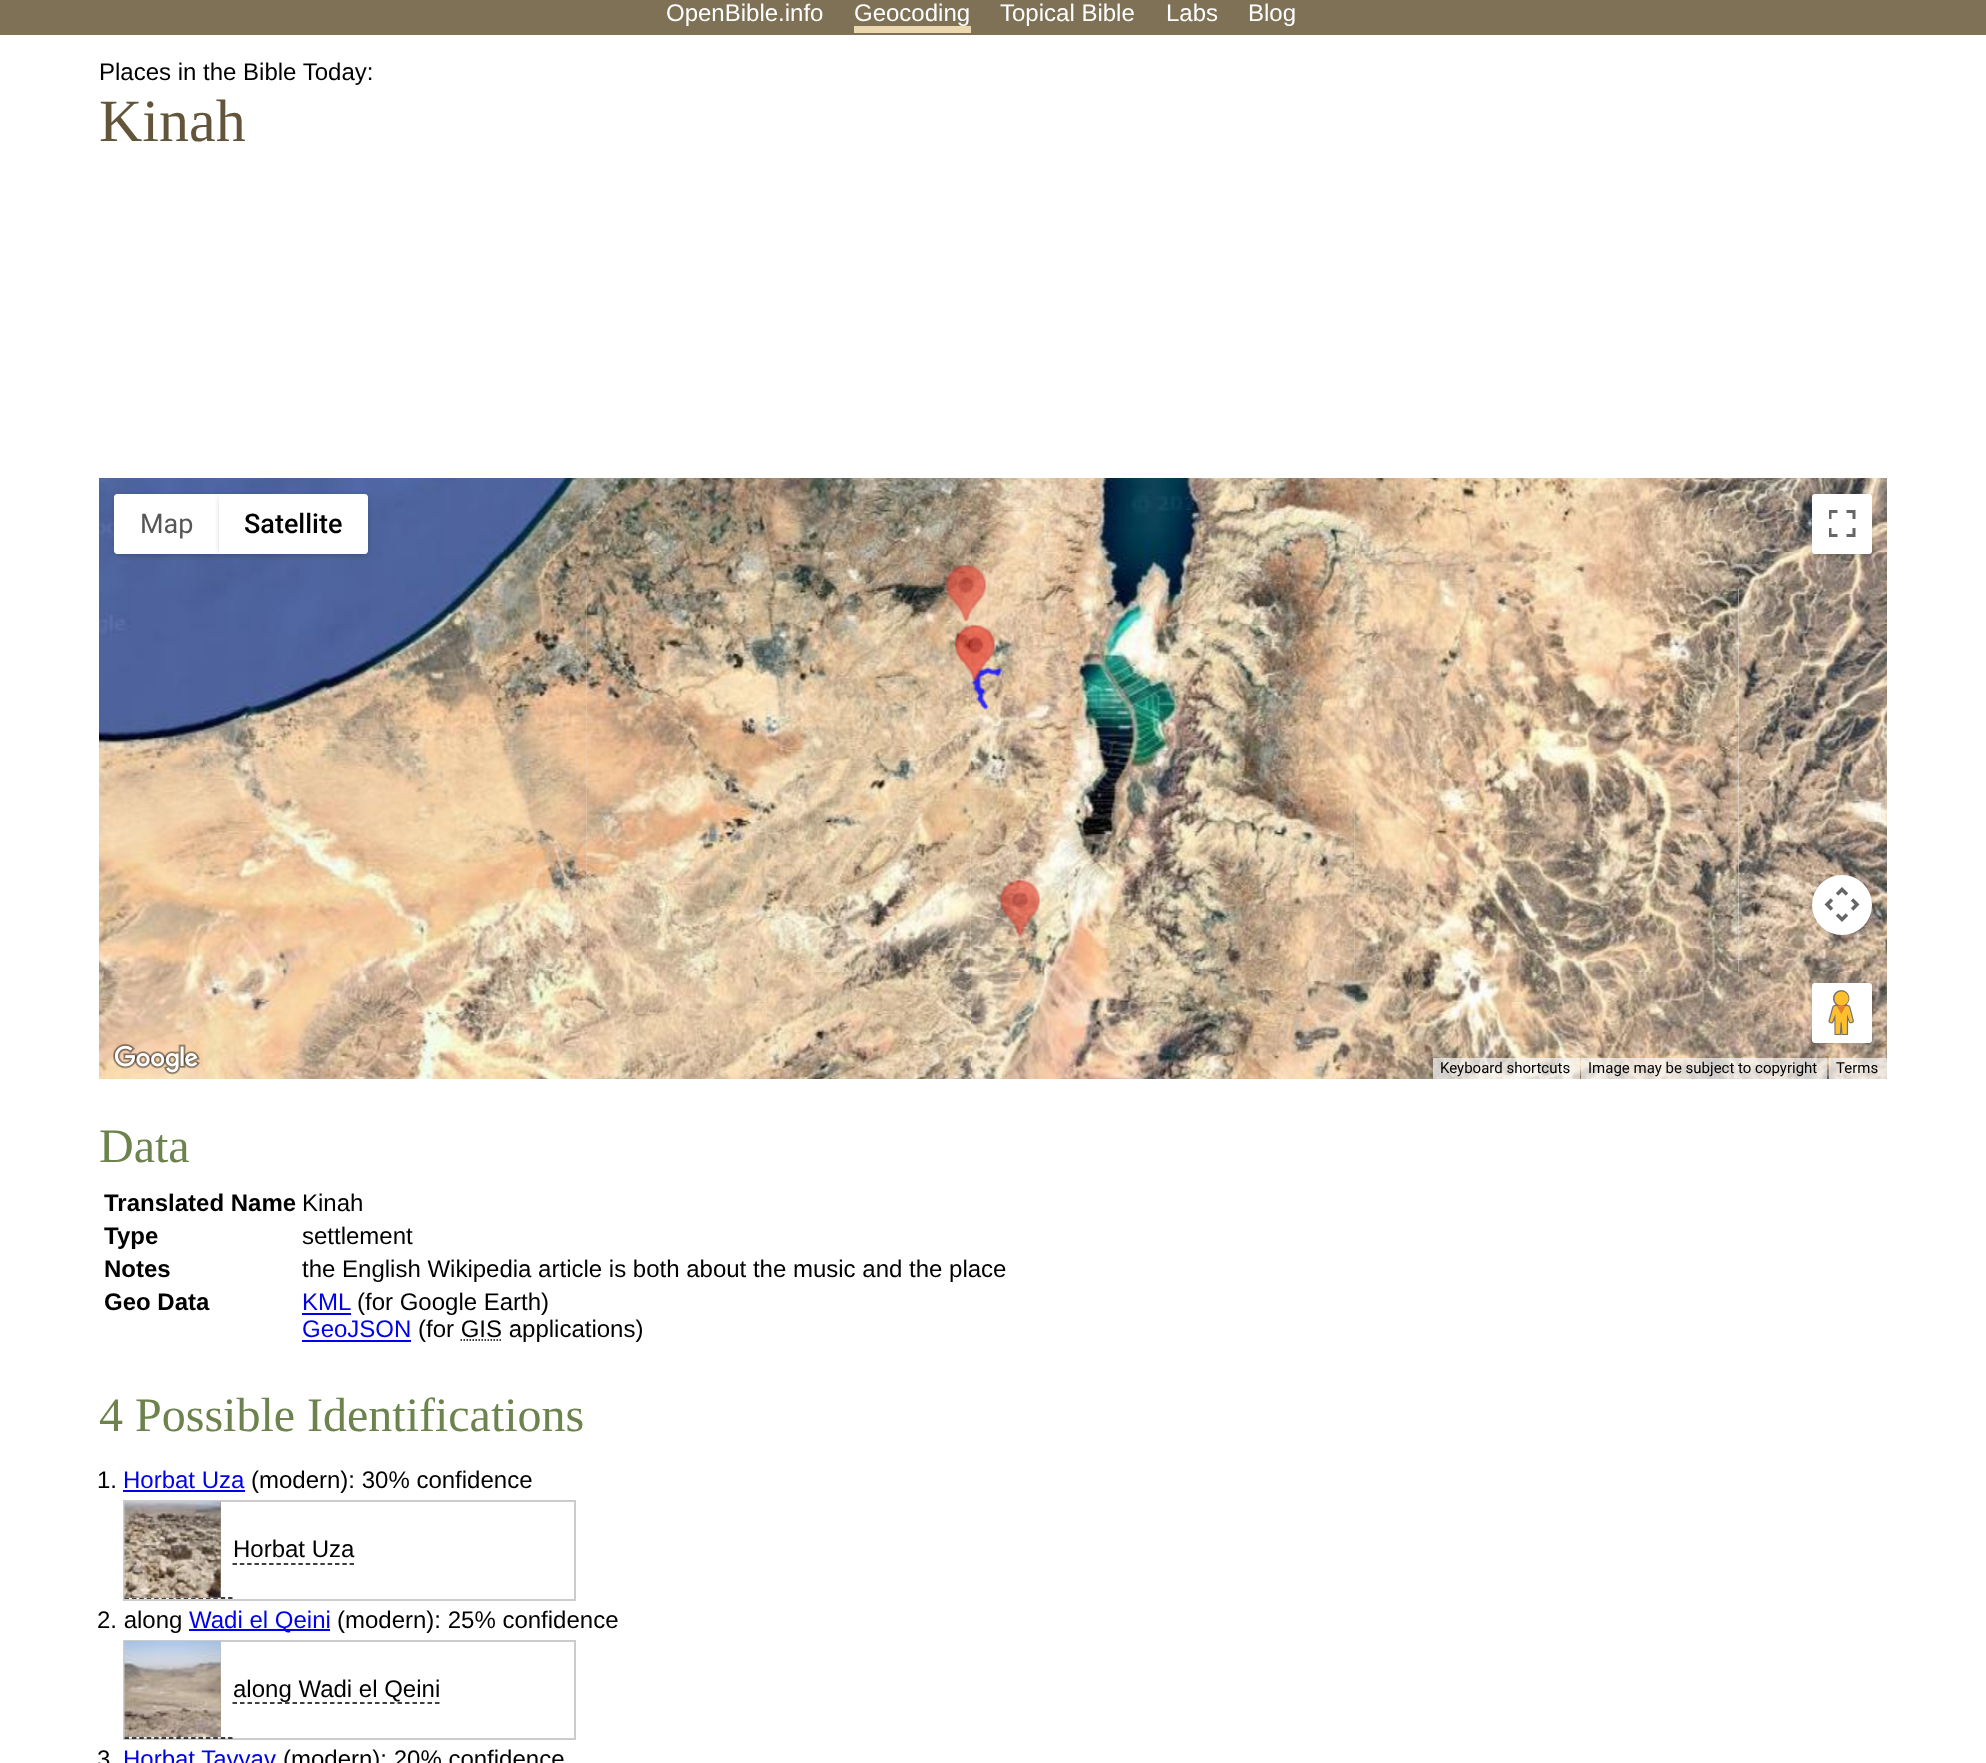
<svg xmlns="http://www.w3.org/2000/svg" xmlns:xlink="http://www.w3.org/1999/xlink" width="1986" height="1763" viewBox="0 0 1986 1763">
<style>
.cls-1{font:24px Liberation Sans;fill:#ffffff}
.cls-2{font:24px Liberation Sans;fill:#000000}
.cls-3{font:60px Liberation Serif;fill:#625539}
.cls-4{font:27px Roboto;fill:#565656}
.cls-5{font:500 27px Roboto;fill:#000000}
.cls-6{font:15px Roboto;fill:#000000}
.cls-7{font:48px Liberation Serif;fill:#6d834e}
.cls-8{font:bold 24px Liberation Sans;fill:#000000}
.cls-9{font:24px Liberation Sans;fill:#0000ee}
</style>
<defs>
<linearGradient id="g1" gradientUnits="userSpaceOnUse" x1="173" y1="1502" x2="173" y2="1598"><stop offset="0" stop-color="#948b82"/><stop offset="0.5" stop-color="#9c8e7c"/><stop offset="1" stop-color="#ab9b88"/></linearGradient>
<linearGradient id="g2" gradientUnits="userSpaceOnUse" x1="173" y1="1641" x2="173" y2="1737"><stop offset="0" stop-color="#b8c2cd"/><stop offset="0.5" stop-color="#b3a693"/><stop offset="1" stop-color="#a89a89"/></linearGradient>
</defs>
<rect width="100%" height="100%" fill="#ffffff"/>
<rect fill="#7e7156" x="0" y="0" width="1986" height="35"/>
<rect fill="#ebd8af" x="854" y="26" width="117" height="7"/>
<rect fill="#e5e3df" x="586" y="588" width="1153" height="384"/>
<image xlink:href="image0.png" x="99" y="478" width="104" height="110"/>
<image xlink:href="image1.png" x="203" y="478" width="384" height="110"/>
<image xlink:href="image2.png" x="587" y="478" width="384" height="110"/>
<image xlink:href="image3.png" x="971" y="478" width="384" height="110"/>
<image xlink:href="image4.png" x="1355" y="478" width="384" height="110"/>
<image xlink:href="image5.png" x="1739" y="478" width="148" height="110"/>
<image xlink:href="image6.png" x="99" y="588" width="104" height="384"/>
<image xlink:href="image9.png" x="970" y="588" width="385" height="384"/>
<image xlink:href="image8.png" x="586" y="588" width="385" height="384"/>
<image xlink:href="image7.png" x="203" y="588" width="384" height="384"/>
<image xlink:href="image10.png" x="1354" y="588" width="385" height="384"/>
<image xlink:href="image11.png" x="1739" y="588" width="148" height="384"/>
<image xlink:href="image12.png" x="99" y="972" width="104" height="107"/>
<image xlink:href="image13.png" x="203" y="972" width="384" height="107"/>
<image xlink:href="image14.png" x="587" y="972" width="384" height="107"/>
<image xlink:href="image15.png" x="971" y="972" width="384" height="107"/>
<image xlink:href="image16.png" x="1355" y="972" width="384" height="107"/>
<image xlink:href="image17.png" x="1739" y="972" width="148" height="107"/>
<image xlink:href="image18.png" x="946" y="565" width="40" height="57"/>
<image xlink:href="image21.png" x="971" y="667" width="32" height="43"/>
<image xlink:href="image19.png" x="955" y="625" width="40" height="57"/>
<image xlink:href="image20.png" x="1000" y="880" width="40" height="56"/>
<rect fill="#000000" fill-opacity="0.3" filter="blur(3px)" x="116" y="497" width="102" height="57" rx="1.5"/>
<path fill="#ffffff" d="M117 494H219V554H117C115.5 554 114 552.5 114 551V497C114 495.5 115.5 494 117 494Z"/>
<rect fill="#000000" fill-opacity="0.3" filter="blur(3px)" x="221" y="497" width="145" height="57" rx="1.5"/>
<path fill="#ffffff" d="M219 494H365C366.5 494 368 495.5 368 497V551C368 552.5 366.5 554 365 554H219Z"/>
<rect fill="#000000" fill-opacity="0.3" filter="blur(3px)" x="1814" y="497" width="57" height="57" rx="1.5"/>
<rect fill="#ffffff" x="1812" y="494" width="60" height="60" rx="3"/>
<image xlink:href="image22.png" x="1829" y="510" width="27" height="27"/>
<rect fill="#000000" fill-opacity="0.3" filter="blur(3px)" x="1814" y="878" width="57" height="57" rx="28.5"/>
<circle fill="#ffffff" cx="1842" cy="905" r="30"/>
<image xlink:href="image23.png" x="1824" y="887" width="36" height="35"/>
<rect fill="#000000" fill-opacity="0.3" filter="blur(3px)" x="1814" y="986" width="57" height="57" rx="1.5"/>
<rect fill="#ffffff" x="1812" y="983" width="60" height="60" rx="3"/>
<image xlink:href="image24.png" x="1828" y="990" width="26" height="45"/>
<image xlink:href="image25.png" x="113" y="1043" width="87" height="32"/>
<rect fill="#f5f5f5" fill-opacity="0.7" x="1433" y="1058" width="147" height="21"/>
<rect fill="#f5f5f5" fill-opacity="0.7" x="1581" y="1058" width="246" height="21"/>
<rect fill="#f5f5f5" fill-opacity="0.7" x="1829" y="1058" width="58" height="21"/>
<rect fill="#0000ee" x="302" y="1313" width="49" height="2"/>
<rect fill="#0000ee" x="302" y="1340" width="109" height="2"/>
<path fill="none" stroke="#000000" stroke-width="1.5" stroke-dasharray="1.5 1.5" d="M460.5 1340H502"/>
<rect fill="#0000ee" x="123" y="1490" width="122" height="2"/>
<rect fill="none" stroke="#cccccc" stroke-width="2" x="124" y="1501" width="451" height="99"/>
<path fill="none" stroke="#000000" stroke-width="1.5" stroke-dasharray="4.5 2.9" d="M124.5 1598H232.5"/>
<rect fill="url(#g1)" x="125" y="1502" width="96" height="96"/>
<image xlink:href="image26.png" x="124" y="1501" width="97" height="97"/>
<path fill="none" stroke="#000000" stroke-width="1.5" stroke-dasharray="4.5 2.82" d="M232.5 1564H354"/>
<rect fill="#0000ee" x="189" y="1629" width="141" height="2"/>
<rect fill="none" stroke="#cccccc" stroke-width="2" x="124" y="1641" width="451" height="98"/>
<path fill="none" stroke="#000000" stroke-width="1.5" stroke-dasharray="4.5 2.9" d="M124.5 1738H232.5"/>
<rect fill="url(#g2)" x="220" y="1641" width="1" height="96"/>
<image xlink:href="image27.png" x="124" y="1641" width="97" height="96"/>
<path fill="none" stroke="#000000" stroke-width="1.5" stroke-dasharray="4.5 3" d="M232.5 1703H439.5"/>
<text class="cls-1" x="666" y="21">OpenBible.info</text>
<text class="cls-1" x="854" y="21">Geocoding</text>
<text class="cls-1" x="1000" y="21">Topical Bible</text>
<text class="cls-1" x="1166" y="21">Labs</text>
<text class="cls-1" x="1248" y="21">Blog</text>
<text class="cls-2" x="99" y="80">Places in the Bible Today:</text>
<text class="cls-3" x="99" y="141">Kinah</text>
<text class="cls-4" x="140" y="533">Map</text>
<text class="cls-5" x="244" y="533">Satellite</text>
<text class="cls-6" x="1440" y="1073">Keyboard shortcuts</text>
<text class="cls-6" x="1588" y="1073">Image may be subject to copyright</text>
<text class="cls-6" x="1836" y="1073">Terms</text>
<text class="cls-7" x="99" y="1162">Data</text>
<text class="cls-8" x="104" y="1211">Translated Name</text>
<text class="cls-2" x="302" y="1211">Kinah</text>
<text class="cls-8" x="104" y="1244">Type</text>
<text class="cls-2" x="302" y="1244">settlement</text>
<text class="cls-8" x="104" y="1277">Notes</text>
<text class="cls-2" x="302" y="1277">the English Wikipedia article is both about the music and the place</text>
<text class="cls-8" x="104" y="1310">Geo Data</text>
<text class="cls-9" x="302" y="1310">KML</text>
<text class="cls-2" x="357" y="1310">(for Google Earth)</text>
<text class="cls-9" x="302" y="1337">GeoJSON</text>
<text class="cls-2" x="418" y="1337">(for GIS applications)</text>
<text class="cls-7" x="99" y="1431">4 Possible Identifications</text>
<text class="cls-2" x="97" y="1488">1.</text>
<text class="cls-9" x="123" y="1488">Horbat Uza</text>
<text class="cls-2" x="251" y="1488">(modern): 30% confidence</text>
<text class="cls-2" x="233" y="1557">Horbat Uza</text>
<text class="cls-2" x="97" y="1628">2. along</text>
<text class="cls-9" x="189" y="1628">Wadi el Qeini</text>
<text class="cls-2" x="337" y="1628">(modern): 25% confidence</text>
<text class="cls-2" x="233" y="1697">along Wadi el Qeini</text>
<text class="cls-2" x="97" y="1767">3</text>
<text class="cls-9" x="123" y="1767">Horbat Tayyav</text>
<text class="cls-2" x="283" y="1767">(modern): 20% confidence</text>
</svg>
